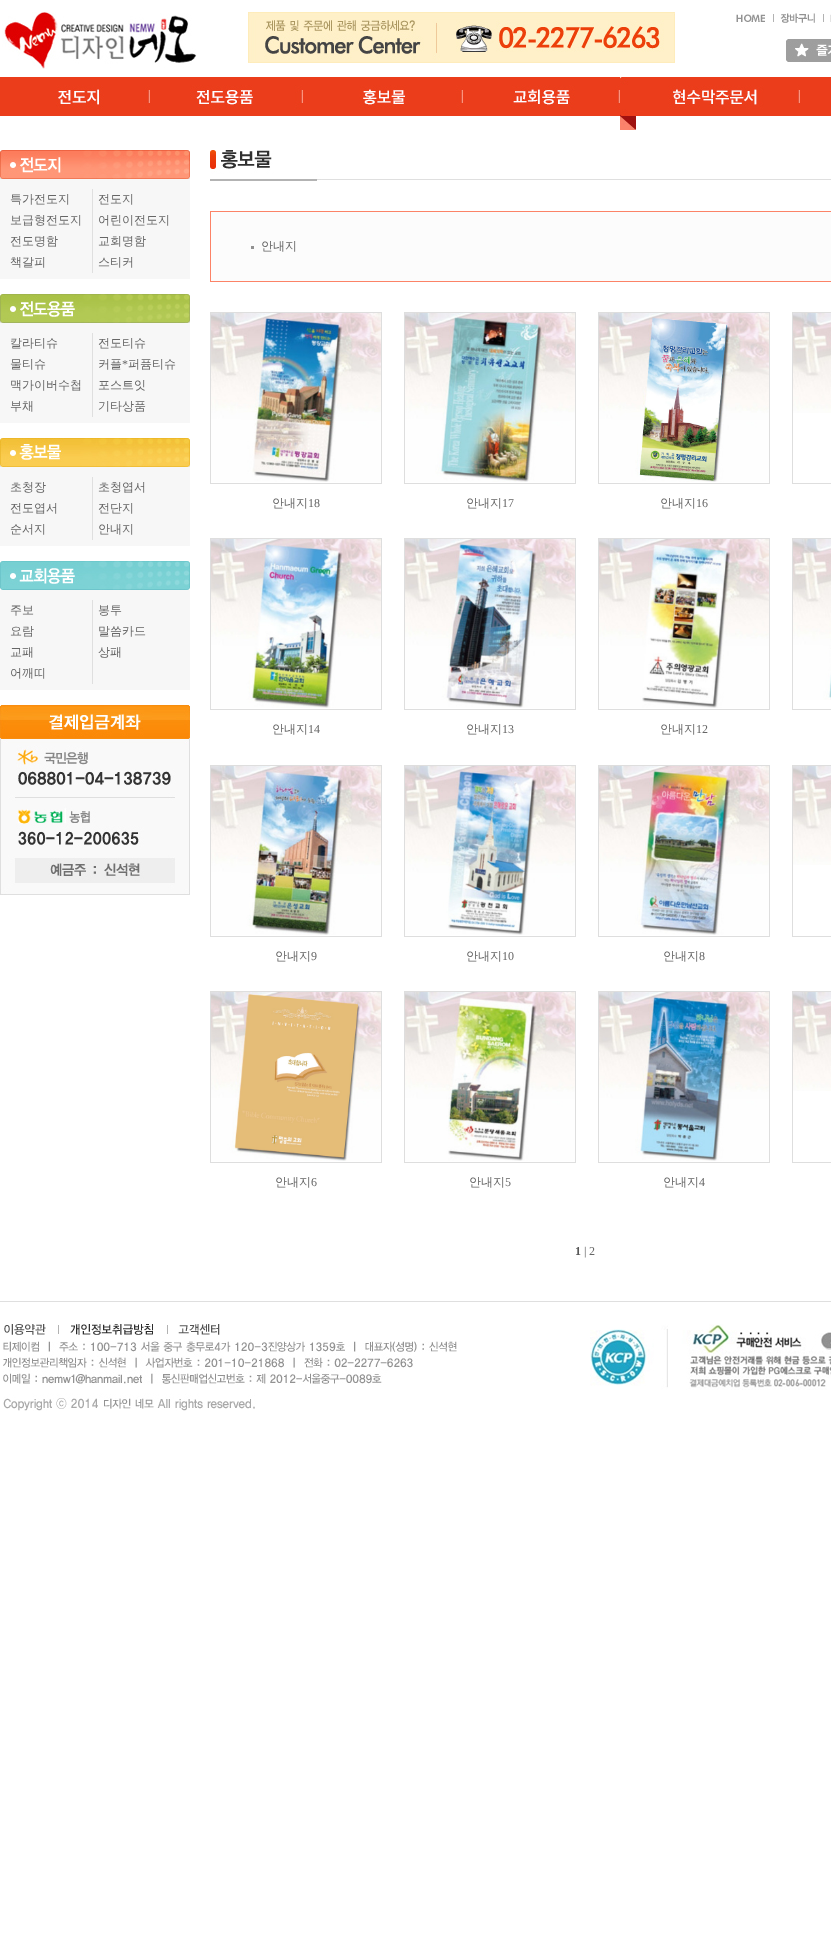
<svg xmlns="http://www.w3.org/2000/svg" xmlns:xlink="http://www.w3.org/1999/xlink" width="831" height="1956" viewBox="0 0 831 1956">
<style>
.cls-1{font:500 12px WenQuanYi Zen Hei;fill:#666666}
.cls-2{font:12px Liberation Serif;fill:#666666}
.cls-3{font:bold 12px Liberation Serif;fill:#585858}
.cls-4{font:12px Liberation Serif;fill:#585858}
</style>
<rect width="100%" height="100%" fill="#ffffff"/>
<image xlink:href="image0.png" x="2" y="12" width="195" height="57"/>
<image xlink:href="image1.png" x="248" y="12" width="427" height="51"/>
<image xlink:href="image2.png" x="736" y="14" width="38" height="8"/>
<image xlink:href="image3.png" x="780" y="13" width="44" height="10"/>
<image xlink:href="image4.png" x="830" y="14" width="1" height="8"/>
<image xlink:href="image5.png" x="786" y="39" width="45" height="23"/>
<image xlink:href="image6.png" x="0" y="77" width="150" height="53"/>
<image xlink:href="image7.png" x="150" y="77" width="153" height="53"/>
<image xlink:href="image8.png" x="303" y="77" width="160" height="53"/>
<image xlink:href="image9.png" x="463" y="77" width="157" height="53"/>
<image xlink:href="image10.png" x="620" y="77" width="180" height="53"/>
<image xlink:href="image11.png" x="800" y="77" width="31" height="53"/>
<rect fill="#f7f7f7" x="0" y="179" width="190" height="100"/>
<image xlink:href="image12.png" x="0" y="150" width="190" height="29"/>
<rect fill="#dfdfdf" x="92" y="189" width="1" height="84"/>
<rect fill="#f7f7f7" x="0" y="323" width="190" height="100"/>
<image xlink:href="image13.png" x="0" y="294" width="190" height="29"/>
<rect fill="#dfdfdf" x="92" y="333" width="1" height="84"/>
<rect fill="#f7f7f7" x="0" y="467" width="190" height="79"/>
<image xlink:href="image14.png" x="0" y="438" width="190" height="29"/>
<rect fill="#dfdfdf" x="92" y="477" width="1" height="63"/>
<rect fill="#f7f7f7" x="0" y="590" width="190" height="100"/>
<image xlink:href="image15.png" x="0" y="561" width="190" height="29"/>
<rect fill="#dfdfdf" x="92" y="600" width="1" height="84"/>
<image xlink:href="image16.png" x="0" y="705" width="190" height="190"/>
<image xlink:href="image17.png" x="210" y="150" width="621" height="31"/>
<rect fill="#fcfcfc" stroke="#fc8367" x="210.5" y="211.5" width="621" height="70"/>
<rect fill="#919191" x="251" y="246" width="3" height="3"/>
<rect fill="none" stroke="#dedede" x="792.5" y="312.5" width="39" height="171"/>
<image xlink:href="image18.png" x="793" y="313" width="38" height="100"/>
<rect fill="none" stroke="#dedede" x="210.5" y="312.5" width="171" height="171"/>
<image xlink:href="image19.png" x="211" y="313" width="170" height="169"/>
<rect fill="none" stroke="#dedede" x="404.5" y="312.5" width="171" height="171"/>
<image xlink:href="image20.png" x="405" y="313" width="170" height="169"/>
<rect fill="none" stroke="#dedede" x="598.5" y="312.5" width="171" height="171"/>
<image xlink:href="image21.png" x="599" y="313" width="170" height="169"/>
<rect fill="none" stroke="#dedede" x="792.5" y="538.5" width="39" height="171"/>
<image xlink:href="image22.png" x="793" y="539" width="38" height="161"/>
<rect fill="none" stroke="#dedede" x="210.5" y="538.5" width="171" height="171"/>
<image xlink:href="image23.png" x="211" y="539" width="170" height="169"/>
<rect fill="none" stroke="#dedede" x="404.5" y="538.5" width="171" height="171"/>
<image xlink:href="image24.png" x="405" y="539" width="170" height="169"/>
<rect fill="none" stroke="#dedede" x="598.5" y="538.5" width="171" height="171"/>
<image xlink:href="image25.png" x="599" y="539" width="170" height="169"/>
<rect fill="none" stroke="#dedede" x="792.5" y="765.5" width="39" height="171"/>
<image xlink:href="image26.png" x="793" y="766" width="38" height="99"/>
<rect fill="none" stroke="#dedede" x="210.5" y="765.5" width="171" height="171"/>
<image xlink:href="image27.png" x="211" y="766" width="170" height="169"/>
<rect fill="none" stroke="#dedede" x="404.5" y="765.5" width="171" height="171"/>
<image xlink:href="image28.png" x="405" y="766" width="170" height="169"/>
<rect fill="none" stroke="#dedede" x="598.5" y="765.5" width="171" height="171"/>
<image xlink:href="image29.png" x="599" y="766" width="170" height="169"/>
<rect fill="none" stroke="#dedede" x="792.5" y="991.5" width="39" height="171"/>
<image xlink:href="image30.png" x="793" y="992" width="38" height="99"/>
<rect fill="none" stroke="#dedede" x="210.5" y="991.5" width="171" height="171"/>
<image xlink:href="image31.png" x="211" y="992" width="170" height="169"/>
<rect fill="none" stroke="#dedede" x="404.5" y="991.5" width="171" height="171"/>
<image xlink:href="image32.png" x="405" y="992" width="170" height="169"/>
<rect fill="none" stroke="#dedede" x="598.5" y="991.5" width="171" height="171"/>
<image xlink:href="image33.png" x="599" y="992" width="170" height="169"/>
<rect fill="#dfdfdf" x="0" y="1301" width="831" height="1"/>
<image xlink:href="image34.png" x="4" y="1324" width="55" height="11"/>
<image xlink:href="image35.png" x="70" y="1324" width="98" height="11"/>
<image xlink:href="image36.png" x="178" y="1324" width="42" height="11"/>
<image xlink:href="image37.png" x="3" y="1341" width="454" height="70"/>
<image xlink:href="image38.png" x="590" y="1324" width="241" height="66"/>
<text class="cls-1" x="10" y="203">특가전도지</text>
<text class="cls-1" x="98" y="203">전도지</text>
<text class="cls-1" x="10" y="224">보급형전도지</text>
<text class="cls-1" x="98" y="224">어린이전도지</text>
<text class="cls-1" x="10" y="245">전도명함</text>
<text class="cls-1" x="98" y="245">교회명함</text>
<text class="cls-1" x="10" y="266">책갈피</text>
<text class="cls-1" x="98" y="266">스티커</text>
<text class="cls-1" x="10" y="347">칼라티슈</text>
<text class="cls-1" x="98" y="347">전도티슈</text>
<text class="cls-1" x="10" y="368">물티슈</text>
<text class="cls-1" x="98" y="368">커플</text>
<text class="cls-2" x="122" y="368">*</text>
<text class="cls-1" x="128" y="368">퍼퓸티슈</text>
<text class="cls-1" x="10" y="389">맥가이버수첩</text>
<text class="cls-1" x="98" y="389">포스트잇</text>
<text class="cls-1" x="10" y="410">부채</text>
<text class="cls-1" x="98" y="410">기타상품</text>
<text class="cls-1" x="10" y="491">초청장</text>
<text class="cls-1" x="98" y="491">초청엽서</text>
<text class="cls-1" x="10" y="512">전도엽서</text>
<text class="cls-1" x="98" y="512">전단지</text>
<text class="cls-1" x="10" y="533">순서지</text>
<text class="cls-1" x="98" y="533">안내지</text>
<text class="cls-1" x="10" y="614">주보</text>
<text class="cls-1" x="98" y="614">봉투</text>
<text class="cls-1" x="10" y="635">요람</text>
<text class="cls-1" x="98" y="635">말씀카드</text>
<text class="cls-1" x="10" y="656">교패</text>
<text class="cls-1" x="98" y="656">상패</text>
<text class="cls-1" x="10" y="677">어깨띠</text>
<text class="cls-1" x="261" y="250">안내지</text>
<text class="cls-1" x="272" y="507">안내지</text>
<text class="cls-2" x="308" y="507">18</text>
<text class="cls-1" x="466" y="507">안내지</text>
<text class="cls-2" x="502" y="507">17</text>
<text class="cls-1" x="660" y="507">안내지</text>
<text class="cls-2" x="696" y="507">16</text>
<text class="cls-1" x="272" y="733">안내지</text>
<text class="cls-2" x="308" y="733">14</text>
<text class="cls-1" x="466" y="733">안내지</text>
<text class="cls-2" x="502" y="733">13</text>
<text class="cls-1" x="660" y="733">안내지</text>
<text class="cls-2" x="696" y="733">12</text>
<text class="cls-1" x="275" y="960">안내지</text>
<text class="cls-2" x="311" y="960">9</text>
<text class="cls-1" x="466" y="960">안내지</text>
<text class="cls-2" x="502" y="960">10</text>
<text class="cls-1" x="663" y="960">안내지</text>
<text class="cls-2" x="699" y="960">8</text>
<text class="cls-1" x="275" y="1186">안내지</text>
<text class="cls-2" x="311" y="1186">6</text>
<text class="cls-1" x="469" y="1186">안내지</text>
<text class="cls-2" x="505" y="1186">5</text>
<text class="cls-1" x="663" y="1186">안내지</text>
<text class="cls-2" x="699" y="1186">4</text>
<text class="cls-3" x="575" y="1255">1</text>
<text class="cls-4" x="584" y="1255">|</text>
<text class="cls-2" x="589" y="1255">2</text>
</svg>
